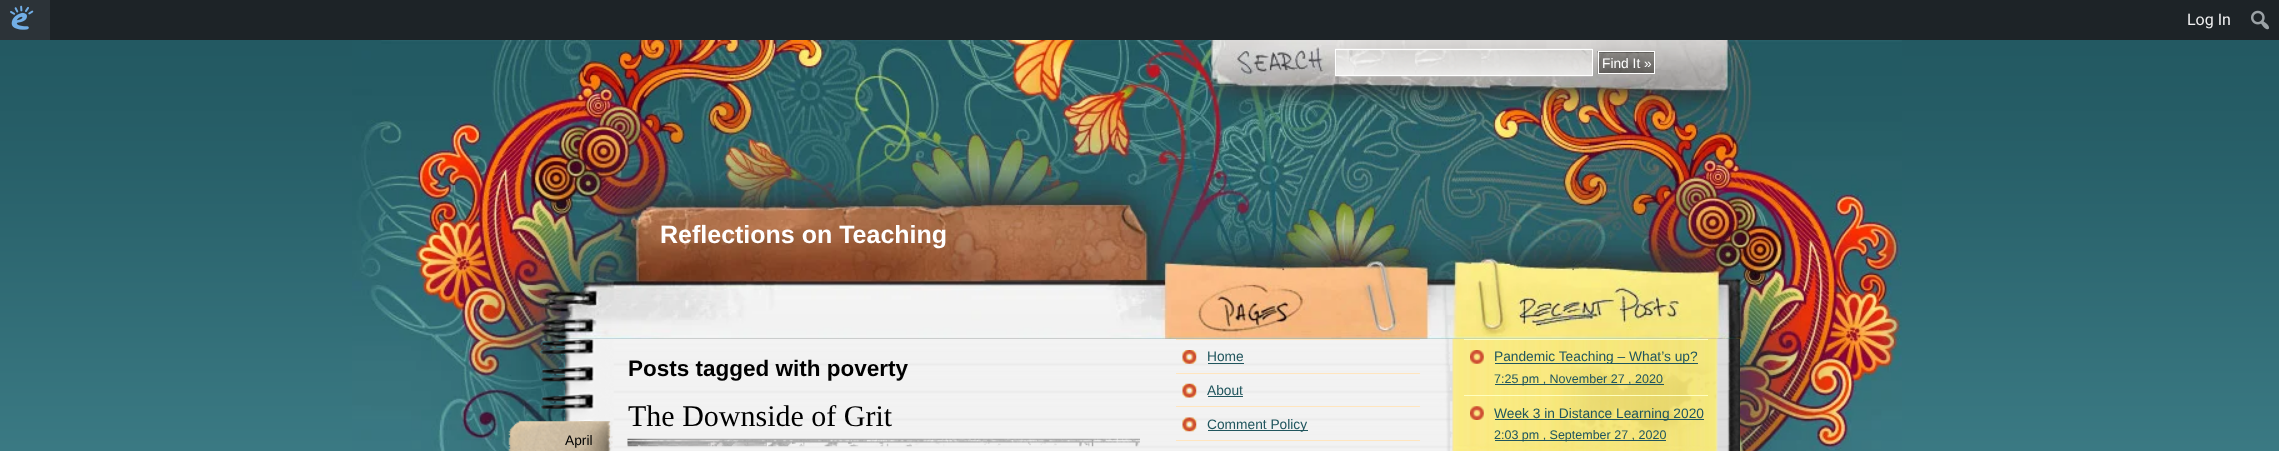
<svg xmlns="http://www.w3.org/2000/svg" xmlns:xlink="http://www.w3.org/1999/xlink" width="2279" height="451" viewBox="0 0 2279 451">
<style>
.cls-1{font:16px Roboto;fill:#f0f0f1}
.cls-2{font:13.75px Liberation Sans;fill:#ffffff}
.cls-3{font:bold 25px Liberation Sans;fill:#ffffff}
.cls-4{font:bold 22.5px Liberation Sans;fill:#000000}
.cls-5{font:30px Liberation Serif;fill:#000000}
.cls-6{font:13.75px Liberation Sans;fill:#000000}
.cls-7{font:13.75px Liberation Sans;fill:#21565e}
.cls-8{font:12.5px Liberation Sans;fill:#21565e}
</style>
<rect width="100%" height="100%" fill="#ffffff"/>
<image xlink:href="image0.png" x="0" y="40" width="2279" height="411"/>
<rect fill="#1d2327" x="50" y="0" width="2229" height="40"/>
<rect fill="#2c3338" x="0" y="0" width="50" height="40"/>
<image xlink:href="image1.png" x="10" y="5" width="24" height="25"/>
<image xlink:href="image2.png" x="2251" y="10" width="18" height="20"/>
<image xlink:href="image3.png" x="352" y="40" width="1550" height="411"/>
<image xlink:href="image4.png" x="1335" y="48" width="258" height="29"/>
<rect fill="none" stroke="#ffffff" x="1335.5" y="49.5" width="257" height="26"/>
<image xlink:href="image5.png" x="1597" y="51" width="57" height="23"/>
<rect fill="none" stroke="#ffffff" x="1598.5" y="51.5" width="56" height="22"/>
<image xlink:href="image6.png" x="540" y="338" width="1200" height="113"/>
<image xlink:href="image7.png" x="627" y="438" width="513" height="9"/>
<image xlink:href="image8.png" x="508" y="421" width="105" height="30"/>
<image xlink:href="image9.png" x="1182" y="350" width="15" height="14"/>
<rect fill="#ffe5be" x="1176" y="339" width="244" height="1"/>
<rect fill="#21565e" x="1208" y="363" width="36" height="1"/>
<image xlink:href="image10.png" x="1182" y="383" width="15" height="15"/>
<rect fill="#ffe5be" x="1176" y="373" width="244" height="1"/>
<rect fill="#21565e" x="1208" y="396" width="35" height="1"/>
<image xlink:href="image11.png" x="1182" y="417" width="15" height="15"/>
<rect fill="#ffe5be" x="1176" y="406" width="244" height="1"/>
<rect fill="#21565e" x="1208" y="430" width="100" height="1"/>
<rect fill="#ffe5be" x="1176" y="440" width="244" height="1"/>
<image xlink:href="image12.png" x="1452" y="338" width="266" height="113"/>
<image xlink:href="image13.png" x="1470" y="350" width="14" height="14"/>
<rect fill="#ffffbe" x="1464" y="339" width="244" height="1"/>
<rect fill="#21565e" x="1495" y="363" width="203" height="1"/>
<rect fill="#21565e" x="1495" y="384" width="169" height="1"/>
<image xlink:href="image14.png" x="1470" y="406" width="14" height="14"/>
<rect fill="#ffffbe" x="1464" y="395" width="244" height="1"/>
<rect fill="#21565e" x="1495" y="419" width="209" height="1"/>
<rect fill="#21565e" x="1495" y="440" width="171" height="1"/>
<text class="cls-1" x="2187" y="25">Log In</text>
<text class="cls-2" x="1602" y="68">Find It »</text>
<text class="cls-3" x="660" y="243">Reflections on Teaching</text>
<text class="cls-4" x="628" y="376">Posts tagged with poverty</text>
<text class="cls-5" x="628" y="426">The Downside of Grit</text>
<text class="cls-6" x="565" y="445">April</text>
<text class="cls-7" x="1207" y="361">Home</text>
<text class="cls-7" x="1207" y="395">About</text>
<text class="cls-7" x="1207" y="429">Comment Policy</text>
<text class="cls-7" x="1494" y="361">Pandemic Teaching – What’s up?</text>
<text class="cls-8" x="1494" y="383">7:25 pm , November 27 , 2020</text>
<text class="cls-7" x="1494" y="418">Week 3 in Distance Learning 2020</text>
<text class="cls-8" x="1494" y="439">2:03 pm , September 27 , 2020</text>
</svg>
